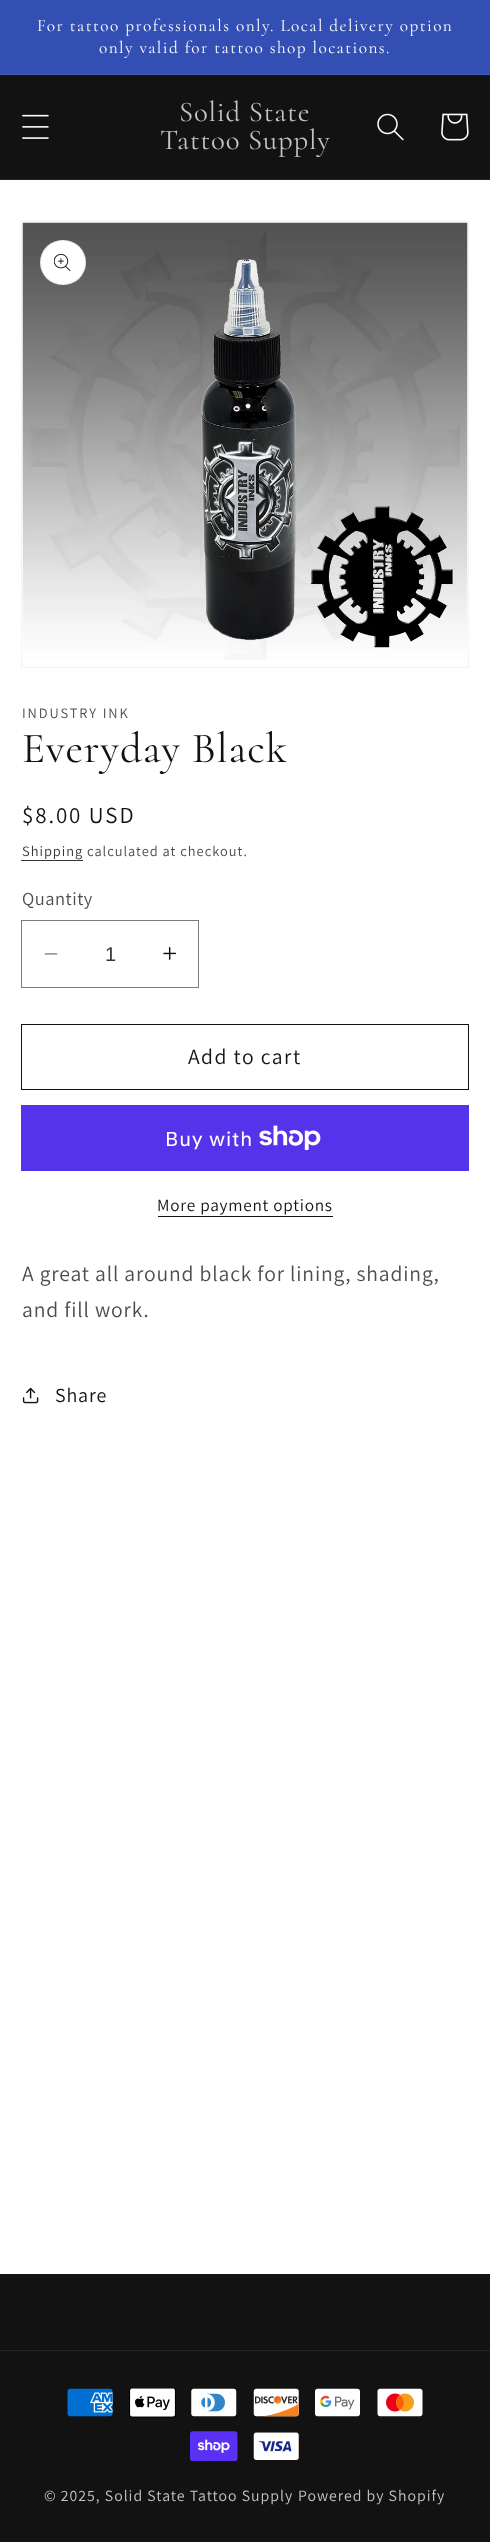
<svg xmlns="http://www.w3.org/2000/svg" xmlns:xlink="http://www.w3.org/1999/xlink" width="490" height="2542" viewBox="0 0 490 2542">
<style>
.cls-1{font:17.25px Cormorant;letter-spacing:1.45px;fill:#ffffff}
.cls-2{font:28.75px Cormorant;letter-spacing:0.85px;fill:#c4c4c4}
.cls-3{font:14.4px Assistant;letter-spacing:1.9px;fill:#4d4d4d}
.cls-4{font:43px Cormorant;letter-spacing:0.85px;fill:#121212}
.cls-5{font:23px Assistant;letter-spacing:1.9px;fill:#121212}
.cls-6{font:14.4px Assistant;letter-spacing:1px;fill:#363636}
.cls-7{font:14.4px Assistant;letter-spacing:1px;fill:#4d4d4d}
.cls-8{font:18.5px Assistant;letter-spacing:0.5px;fill:#4d4d4d}
.cls-9{font:20px Liberation Sans;fill:#363636}
.cls-10{font:21.6px Assistant;letter-spacing:1.45px;fill:#121212}
.cls-11{font:20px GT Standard;letter-spacing:0.85px;fill:#ffffff}
.cls-12{font:17.25px Assistant;letter-spacing:0.75px;fill:#121212}
.cls-13{font:21.6px Assistant;letter-spacing:0.85px;fill:#4d4d4d}
.cls-14{font:20px Assistant;letter-spacing:0.85px;fill:#121212}
.cls-15{font:15.75px Assistant;letter-spacing:1px;fill:#c4c4c4}
</style>
<rect width="100%" height="100%" fill="#ffffff"/>
<rect fill="#334fb4" x="0" y="0" width="490" height="74"/>
<rect fill="#435dba" x="0" y="74" width="490" height="1"/>
<rect fill="#121212" x="0" y="75" width="490" height="104"/>
<rect fill="#252525" x="0" y="179" width="490" height="1"/>
<image xlink:href="image0.png" x="22" y="114" width="27" height="25"/>
<image xlink:href="image1.png" x="377" y="113" width="27" height="28"/>
<image xlink:href="image2.png" x="441" y="113" width="28" height="28"/>
<rect fill="none" stroke="#f3f3f3" x="21.5" y="221.5" width="447" height="446"/>
<image xlink:href="image3.png" x="22" y="222" width="446" height="438"/>
<rect fill="#ffffff" x="40" y="240" width="46" height="45" rx="22.5"/>
<rect fill="none" stroke="#121212" stroke-opacity="0.1" x="40.5" y="240.5" width="45" height="44" rx="22"/>
<image xlink:href="image4.png" x="54" y="253" width="17" height="18"/>
<rect fill="#363636" x="21" y="860" width="62" height="1"/>
<image xlink:href="image5.png" x="44" y="953" width="14" height="2"/>
<image xlink:href="image6.png" x="163" y="947" width="14" height="13"/>
<rect fill="none" stroke="#7d7d7d" x="21.5" y="920.5" width="177" height="67"/>
<rect fill="none" stroke="#121212" x="21.5" y="1024.5" width="447" height="65"/>
<rect fill="#5433eb" x="21" y="1105" width="448" height="66"/>
<image xlink:href="image7.png" x="259" y="1125" width="62" height="25"/>
<rect fill="#121212" x="158" y="1216" width="175" height="1"/>
<image xlink:href="image8.png" x="22" y="1387" width="17" height="17"/>
<rect fill="#121212" x="0" y="2274" width="490" height="268"/>
<rect fill="#252525" x="0" y="2350" width="490" height="1"/>
<image xlink:href="image9.png" x="67" y="2388" width="46" height="29"/>
<image xlink:href="image10.png" x="129" y="2388" width="47" height="30"/>
<image xlink:href="image11.png" x="191" y="2388" width="46" height="29"/>
<image xlink:href="image12.png" x="253" y="2388" width="46" height="29"/>
<image xlink:href="image13.png" x="315" y="2388" width="45" height="29"/>
<image xlink:href="image14.png" x="377" y="2388" width="46" height="29"/>
<image xlink:href="image15.png" x="190" y="2431" width="48" height="30"/>
<image xlink:href="image16.png" x="253" y="2432" width="46" height="28"/>
<text class="cls-1" x="37" y="31">For tattoo professionals only. Local delivery option</text>
<text class="cls-1" x="99" y="53">only valid for tattoo shop locations.</text>
<text class="cls-2" x="179" y="121">Solid State</text>
<text class="cls-2" x="160" y="149">Tattoo Supply</text>
<text class="cls-3" x="22" y="718">INDUSTRY INK</text>
<text class="cls-4" x="22" y="762">Everyday Black</text>
<text class="cls-5" x="22" y="823">$8.00 USD</text>
<text class="cls-6" x="22" y="856">Shipping</text>
<text class="cls-7" x="87" y="856">calculated at checkout.</text>
<text class="cls-8" x="22" y="905">Quantity</text>
<text class="cls-9" x="105" y="961">1</text>
<text class="cls-10" x="188" y="1064">Add to cart</text>
<text class="cls-11" x="165" y="1146">Buy with</text>
<text class="cls-12" x="157" y="1211">More payment options</text>
<text class="cls-13"><tspan x="22" y="1281">A great all around black for lining, shading,</tspan><tspan x="22" y="1317">and fill work.</tspan></text>
<text class="cls-14" x="55" y="1402">Share</text>
<text class="cls-15" x="44" y="2501">© 2025, Solid State Tattoo Supply</text>
<text class="cls-15" x="298" y="2501">Powered by Shopify</text>
</svg>
